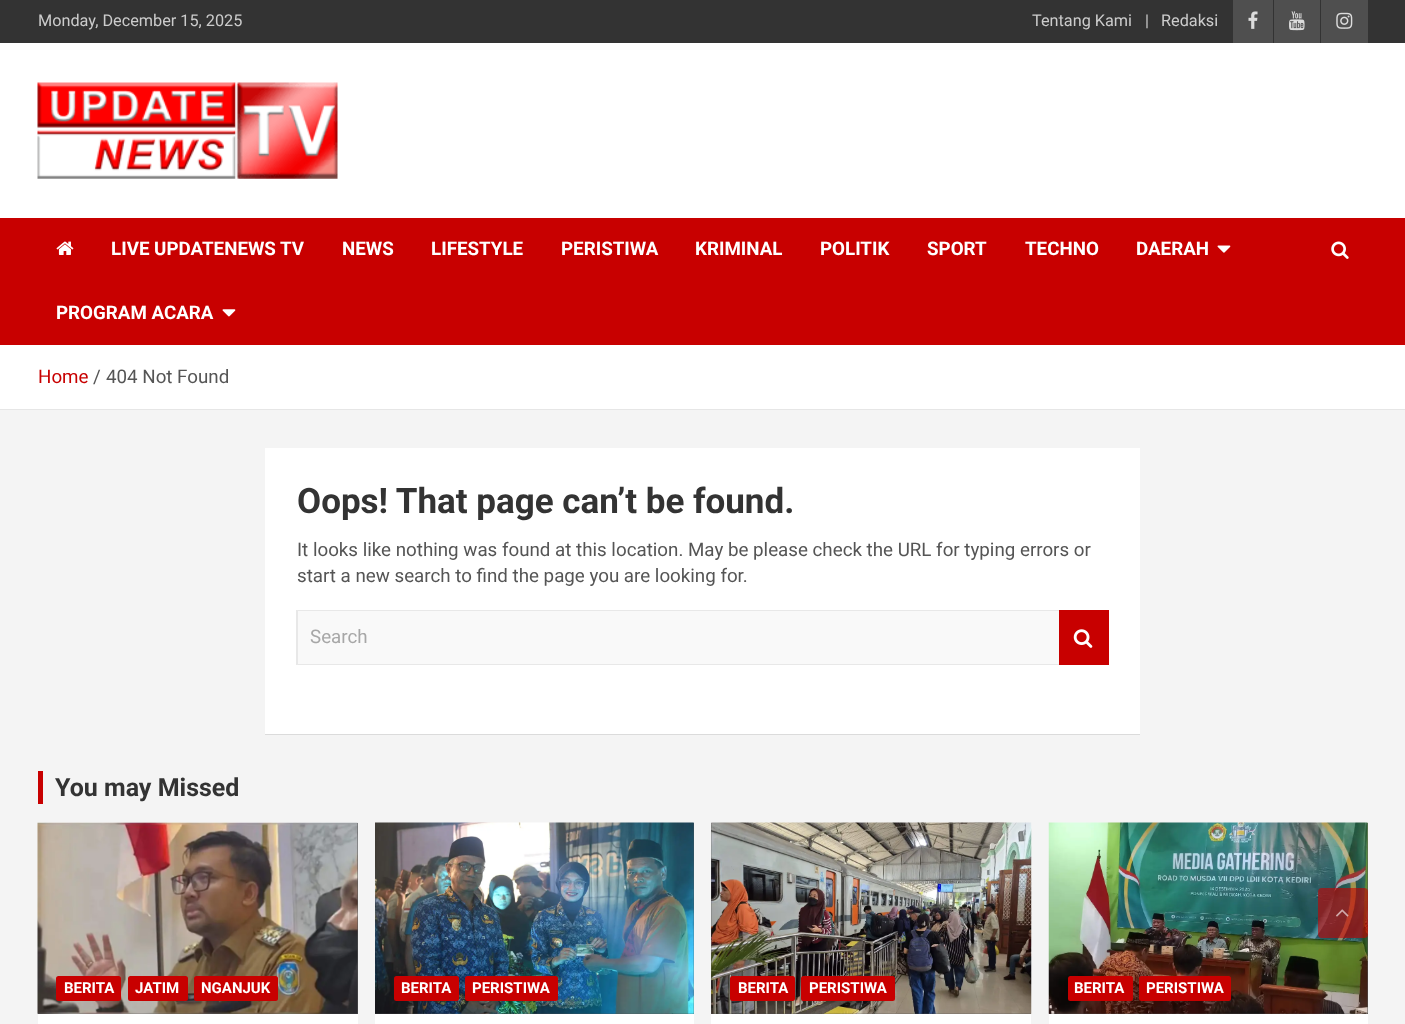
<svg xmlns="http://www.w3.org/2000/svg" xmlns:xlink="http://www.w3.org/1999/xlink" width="1405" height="1024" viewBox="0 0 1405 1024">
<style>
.cls-1{font:16.25px Roboto;fill:#cccccc}
.cls-2{font:bold 18.75px Roboto;fill:#ffffff}
.cls-3{font:18.75px Roboto;fill:#c80000}
.cls-4{font:18.75px Roboto;fill:#555555}
.cls-5{font:bold 35px Roboto;fill:#333333}
.cls-6{font:18.75px Roboto;fill:#a7a7a7}
.cls-7{font:bold 25px Roboto;fill:#333333}
.cls-8{font:bold 15px Roboto;fill:#ffffff}
</style>
<rect width="100%" height="100%" fill="#f4f4f4"/>
<rect fill="#333333" x="0" y="0" width="1405" height="43"/>
<rect fill="#4f4f4f" x="1233" y="0" width="40" height="43"/>
<image xlink:href="image0.png" x="1248" y="11" width="10" height="18"/>
<rect fill="#4f4f4f" x="1274" y="0" width="46" height="43"/>
<image xlink:href="image1.png" x="1289" y="11" width="16" height="20"/>
<rect fill="#4f4f4f" x="1321" y="0" width="47" height="43"/>
<image xlink:href="image2.png" x="1336" y="12" width="17" height="17"/>
<rect fill="#ffffff" x="0" y="43" width="1405" height="175"/>
<image xlink:href="image3.png" x="37" y="82" width="301" height="97"/>
<rect fill="#c80000" x="0" y="218" width="1405" height="127"/>
<image xlink:href="image4.png" x="56" y="241" width="18" height="14"/>
<image xlink:href="image5.png" x="1217" y="245" width="14" height="8"/>
<image xlink:href="image6.png" x="222" y="309" width="14" height="8"/>
<image xlink:href="image7.png" x="1331" y="241" width="18" height="18"/>
<rect fill="#ffffff" x="0" y="345" width="1405" height="64"/>
<rect fill="#e6e6e6" x="0" y="409" width="1405" height="1"/>
<rect fill="#000000" fill-opacity="0.1" filter="blur(0.5px)" x="265" y="449" width="875" height="286"/>
<rect fill="#ffffff" x="265" y="448" width="875" height="286"/>
<rect fill="#f9f9f9" x="298" y="611" width="761" height="53"/>
<path fill="#e8e8e8" d="M296 610H1059V611H298Z"/>
<path fill="#e8e8e8" d="M1059 665H296L298 664H1059Z"/>
<path fill="#000000" fill-opacity="0.09" d="M296 665V610L298 611V664Z"/>
<rect fill="#c80000" x="1059" y="610" width="50" height="55"/>
<image xlink:href="image8.png" x="1073" y="629" width="20" height="19"/>
<rect fill="#c80000" x="38" y="771" width="5" height="33"/>
<rect fill="#ffffff" x="38" y="1014" width="320" height="10"/>
<rect fill="#555555" x="38" y="823" width="320" height="191"/>
<image xlink:href="image9.png" x="37" y="822" width="321" height="192"/>
<rect fill="#c80000" x="56" y="976" width="65" height="25" rx="2.5"/>
<rect fill="#c80000" x="128" y="976" width="60" height="25" rx="2.5"/>
<rect fill="#c80000" x="194" y="976" width="84" height="25" rx="2.5"/>
<rect fill="#ffffff" x="375" y="1014" width="319" height="10"/>
<rect fill="#555555" x="375" y="823" width="319" height="191"/>
<image xlink:href="image10.png" x="375" y="822" width="319" height="192"/>
<rect fill="#c80000" x="394" y="976" width="65" height="25" rx="2.5"/>
<rect fill="#c80000" x="465" y="976" width="93" height="25" rx="2.5"/>
<rect fill="#ffffff" x="711" y="1014" width="320" height="10"/>
<rect fill="#555555" x="711" y="823" width="320" height="191"/>
<image xlink:href="image11.png" x="711" y="822" width="321" height="192"/>
<rect fill="#c80000" x="730" y="976" width="65" height="25" rx="2.5"/>
<rect fill="#c80000" x="801" y="976" width="94" height="25" rx="2.5"/>
<rect fill="#ffffff" x="1049" y="1014" width="319" height="10"/>
<rect fill="#555555" x="1049" y="823" width="319" height="191"/>
<image xlink:href="image12.png" x="1048" y="822" width="320" height="192"/>
<rect fill="#c80000" x="1068" y="976" width="65" height="25" rx="2.5"/>
<rect fill="#c80000" x="1139" y="976" width="92" height="25" rx="2.5"/>
<rect fill="#c80000" fill-opacity="0.6" x="1318" y="888" width="50" height="50" rx="4"/>
<image xlink:href="image13.png" x="1336" y="909" width="13" height="8"/>
<text class="cls-1" x="38" y="26">Monday, December 15, 2025</text>
<text class="cls-1" x="1032" y="26">Tentang Kami</text>
<text class="cls-1" x="1145" y="26">|</text>
<text class="cls-1" x="1161" y="26">Redaksi</text>
<text class="cls-2" x="111" y="255">LIVE UPDATENEWS TV</text>
<text class="cls-2" x="342" y="255">NEWS</text>
<text class="cls-2" x="431" y="255">LIFESTYLE</text>
<text class="cls-2" x="561" y="255">PERISTIWA</text>
<text class="cls-2" x="695" y="255">KRIMINAL</text>
<text class="cls-2" x="820" y="255">POLITIK</text>
<text class="cls-2" x="927" y="255">SPORT</text>
<text class="cls-2" x="1025" y="255">TECHNO</text>
<text class="cls-2" x="1136" y="255">DAERAH</text>
<text class="cls-2" x="56" y="319">PROGRAM ACARA</text>
<text class="cls-3" x="38" y="383">Home</text>
<text class="cls-4" x="93" y="383">/</text>
<text class="cls-4" x="106" y="383">404 Not Found</text>
<text class="cls-5" x="297" y="513">Oops! That page can’t be found.</text>
<text class="cls-4"><tspan x="297" y="556">It looks like nothing was found at this location. May be please check the URL for typing errors or</tspan><tspan x="297" y="582">start a new search to find the page you are looking for.</tspan></text>
<text class="cls-6" x="310" y="643">Search</text>
<text class="cls-7" x="55" y="796">You may Missed</text>
<text class="cls-8" x="64" y="993">BERITA</text>
<text class="cls-8" x="135" y="993">JATIM</text>
<text class="cls-8" x="201" y="993">NGANJUK</text>
<text class="cls-8" x="401" y="993">BERITA</text>
<text class="cls-8" x="472" y="993">PERISTIWA</text>
<text class="cls-8" x="738" y="993">BERITA</text>
<text class="cls-8" x="809" y="993">PERISTIWA</text>
<text class="cls-8" x="1074" y="993">BERITA</text>
<text class="cls-8" x="1146" y="993">PERISTIWA</text>
</svg>
